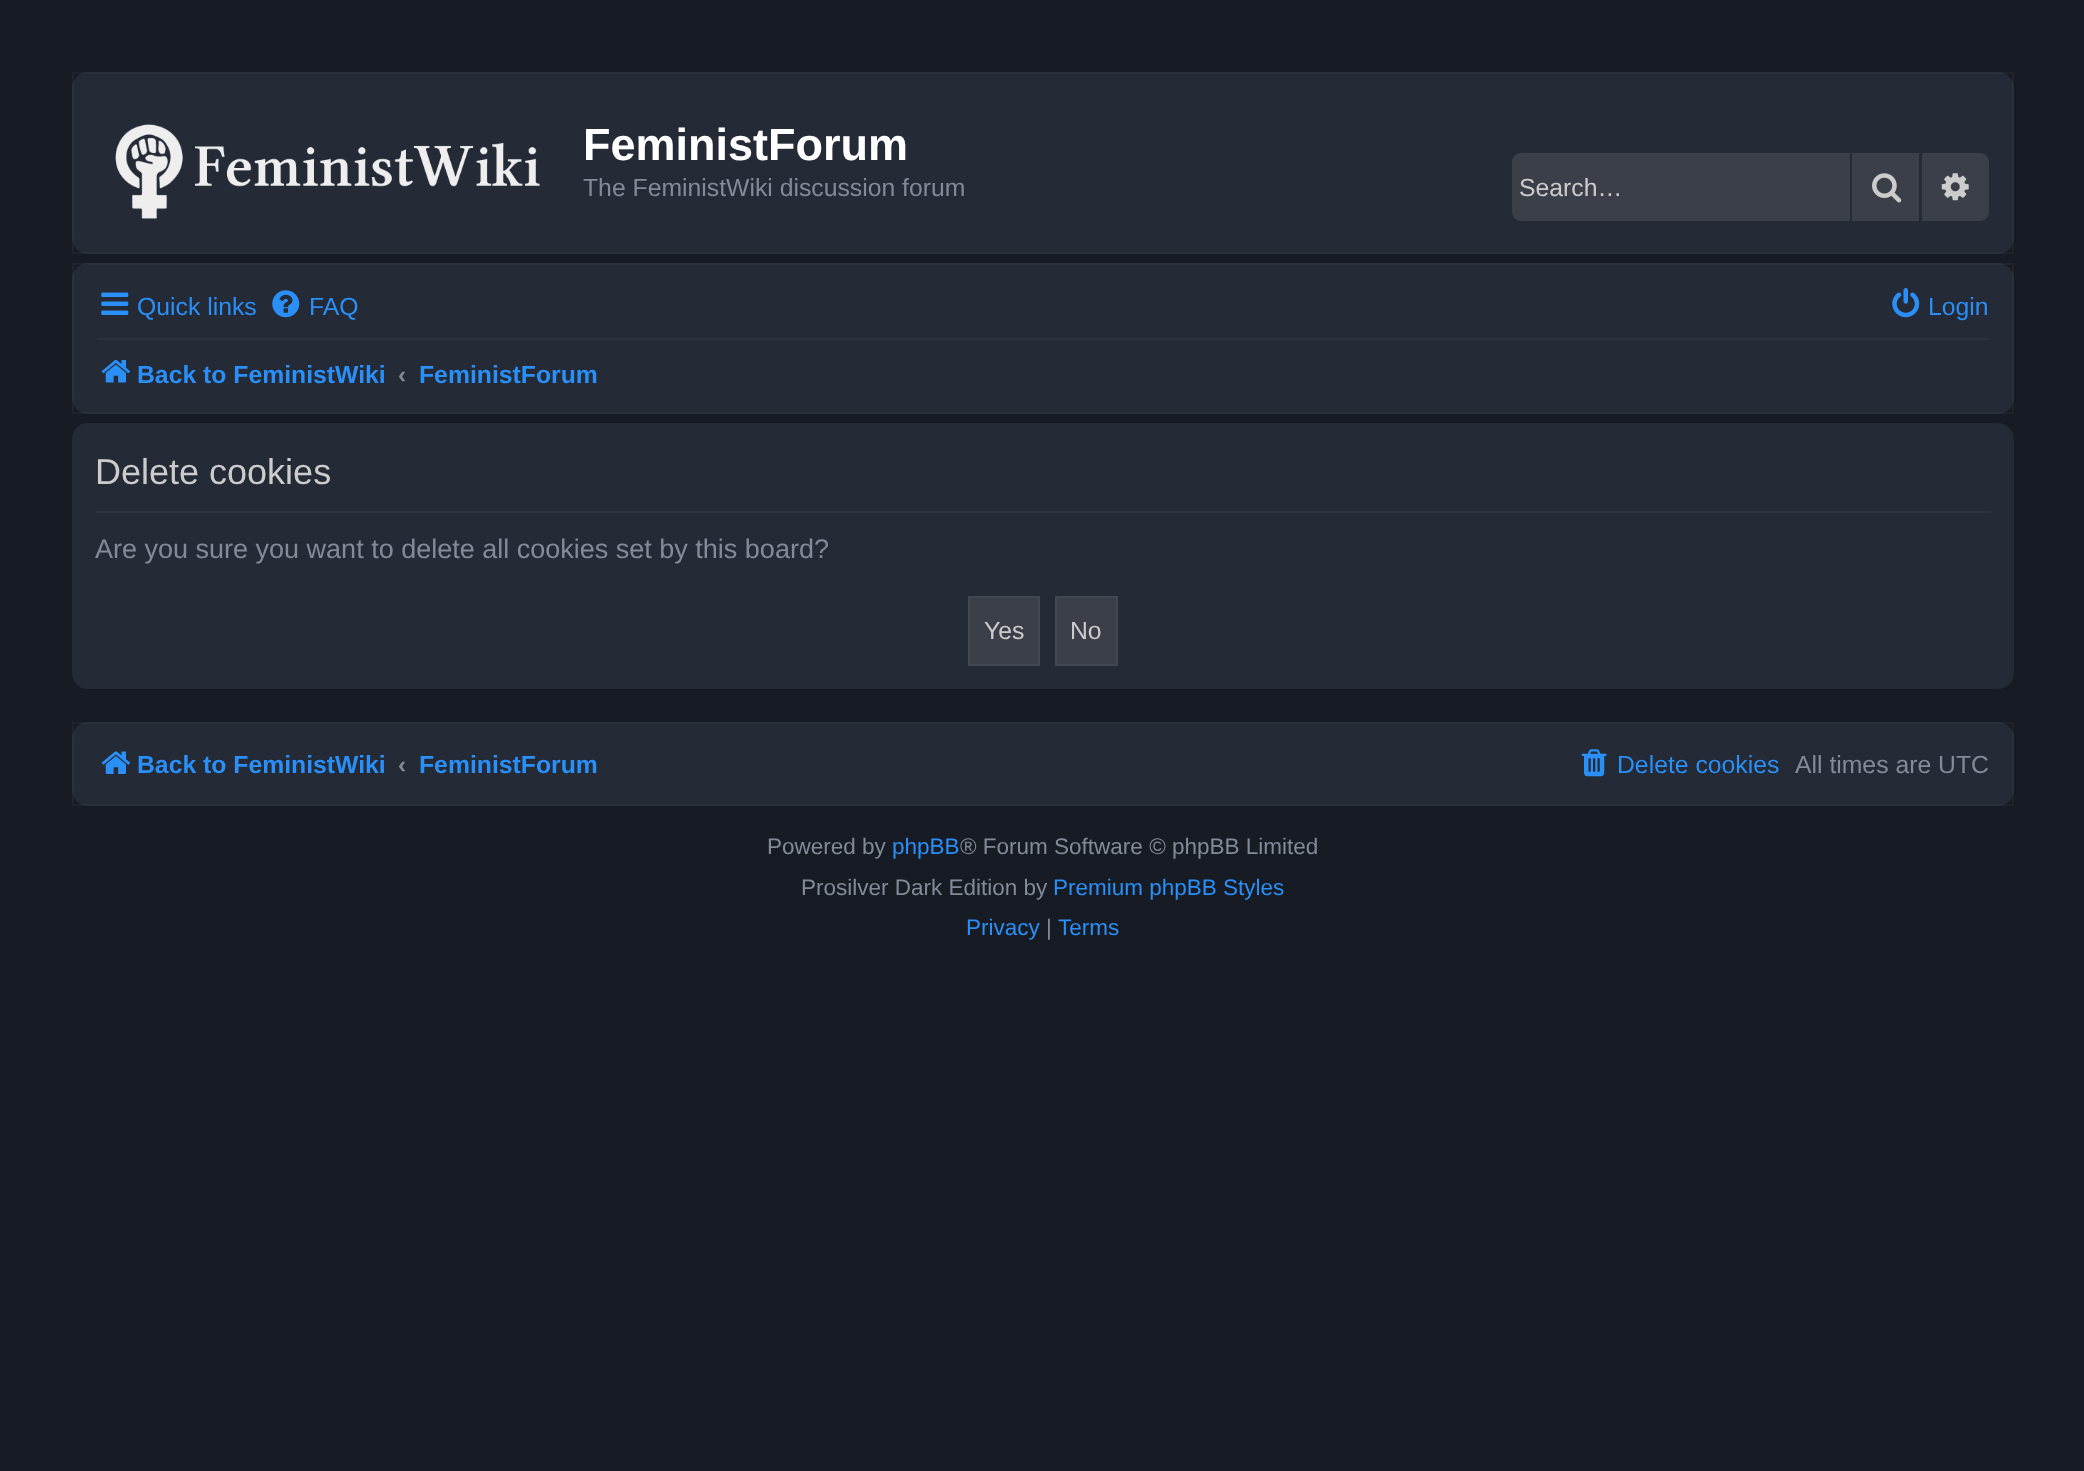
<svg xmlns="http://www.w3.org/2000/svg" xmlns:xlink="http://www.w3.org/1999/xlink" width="2084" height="1471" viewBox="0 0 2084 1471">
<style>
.cls-1{font:bold 45px Liberation Sans;fill:#ffffff}
.cls-2{font:24.75px Liberation Sans;fill:#838b98}
.cls-3{font:24.75px Liberation Sans;fill:#cccccc}
.cls-4{font:24.75px Liberation Sans;fill:#2a8ff7}
.cls-5{font:bold 24.75px Liberation Sans;fill:#2a8ff7}
.cls-6{font:bold 24.75px Liberation Sans;fill:#838b98}
.cls-7{font:36px Liberation Sans;fill:#cccccc}
.cls-8{font:27px Liberation Sans;fill:#838b98}
.cls-9{font:22.5px Liberation Sans;fill:#838b98}
.cls-10{font:22.5px Liberation Sans;fill:#2a8ff7}
</style>
<rect width="100%" height="100%" fill="#171b24"/>
<rect fill="#242a36" x="72" y="72" width="1942" height="182" rx="16"/>
<rect fill="none" stroke="#ffffff" stroke-opacity="0.04" stroke-width="2" x="73" y="73" width="1940" height="180"/>
<image xlink:href="image0.png" x="115" y="124" width="425" height="95"/>
<path fill="#3a3f4a" d="M1521 153H1850V221H1521C1516 221 1512 217 1512 212V162C1512 157 1516 153 1521 153Z"/>
<rect fill="#3a3f4a" x="1852" y="153" width="67" height="68"/>
<image xlink:href="image1.png" x="1872" y="173" width="30" height="30"/>
<path fill="#3a3f4a" d="M1922 153H1980C1985 153 1989 157 1989 162V212C1989 217 1985 221 1980 221H1922Z"/>
<image xlink:href="image2.png" x="1941" y="173" width="28" height="28"/>
<rect fill="#242a36" x="72" y="263" width="1942" height="151" rx="16"/>
<rect fill="none" stroke="#ffffff" stroke-opacity="0.04" stroke-width="2" x="73" y="264" width="1940" height="149"/>
<image xlink:href="image3.png" x="101" y="292" width="28" height="23"/>
<image xlink:href="image4.png" x="272" y="290" width="28" height="28"/>
<image xlink:href="image5.png" x="1892" y="288" width="28" height="30"/>
<rect fill="#2d333e" x="97" y="338" width="1892" height="2"/>
<image xlink:href="image6.png" x="101" y="360" width="29" height="23"/>
<rect fill="#242a36" x="72" y="423" width="1942" height="266" rx="16"/>
<rect fill="#2d333e" x="95" y="511" width="1896" height="2"/>
<rect fill="#3a3f4a" stroke="#424751" stroke-width="2" x="969" y="597" width="70" height="68"/>
<rect fill="#3a3f4a" stroke="#424751" stroke-width="2" x="1056" y="597" width="61" height="68"/>
<rect fill="#242a36" x="72" y="722" width="1942" height="84" rx="16"/>
<rect fill="none" stroke="#ffffff" stroke-opacity="0.04" stroke-width="2" x="73" y="723" width="1940" height="82"/>
<image xlink:href="image7.png" x="101" y="751" width="29" height="23"/>
<image xlink:href="image8.png" x="1581" y="749" width="26" height="28"/>
<text class="cls-1" x="583" y="160">FeministForum</text>
<text class="cls-2" x="583" y="196">The FeministWiki discussion forum</text>
<text class="cls-3" x="1519" y="196">Search…</text>
<text class="cls-4" x="137" y="315">Quick links</text>
<text class="cls-4" x="309" y="315">FAQ</text>
<text class="cls-4" x="1928" y="315">Login</text>
<text class="cls-5" x="137" y="383">Back to FeministWiki</text>
<text class="cls-6" x="398" y="383">‹</text>
<text class="cls-5" x="419" y="383">FeministForum</text>
<text class="cls-7" x="95" y="484">Delete cookies</text>
<text class="cls-8" x="95" y="558">Are you sure you want to delete all cookies set by this board?</text>
<text class="cls-3" x="984" y="639">Yes</text>
<text class="cls-3" x="1070" y="639">No</text>
<text class="cls-5" x="137" y="773">Back to FeministWiki</text>
<text class="cls-6" x="398" y="773">‹</text>
<text class="cls-5" x="419" y="773">FeministForum</text>
<text class="cls-4" x="1617" y="773">Delete cookies</text>
<text class="cls-2" x="1795" y="773">All times are UTC</text>
<text class="cls-9" x="767" y="854">Powered by</text>
<text class="cls-10" x="892" y="854">phpBB</text>
<text class="cls-9" x="960" y="854">® Forum Software © phpBB Limited</text>
<text class="cls-9" x="801" y="895">Prosilver Dark Edition by</text>
<text class="cls-10" x="1053" y="895">Premium phpBB Styles</text>
<text class="cls-10" x="966" y="935">Privacy</text>
<text class="cls-9" x="1046" y="935">|</text>
<text class="cls-10" x="1058" y="935">Terms</text>
</svg>
